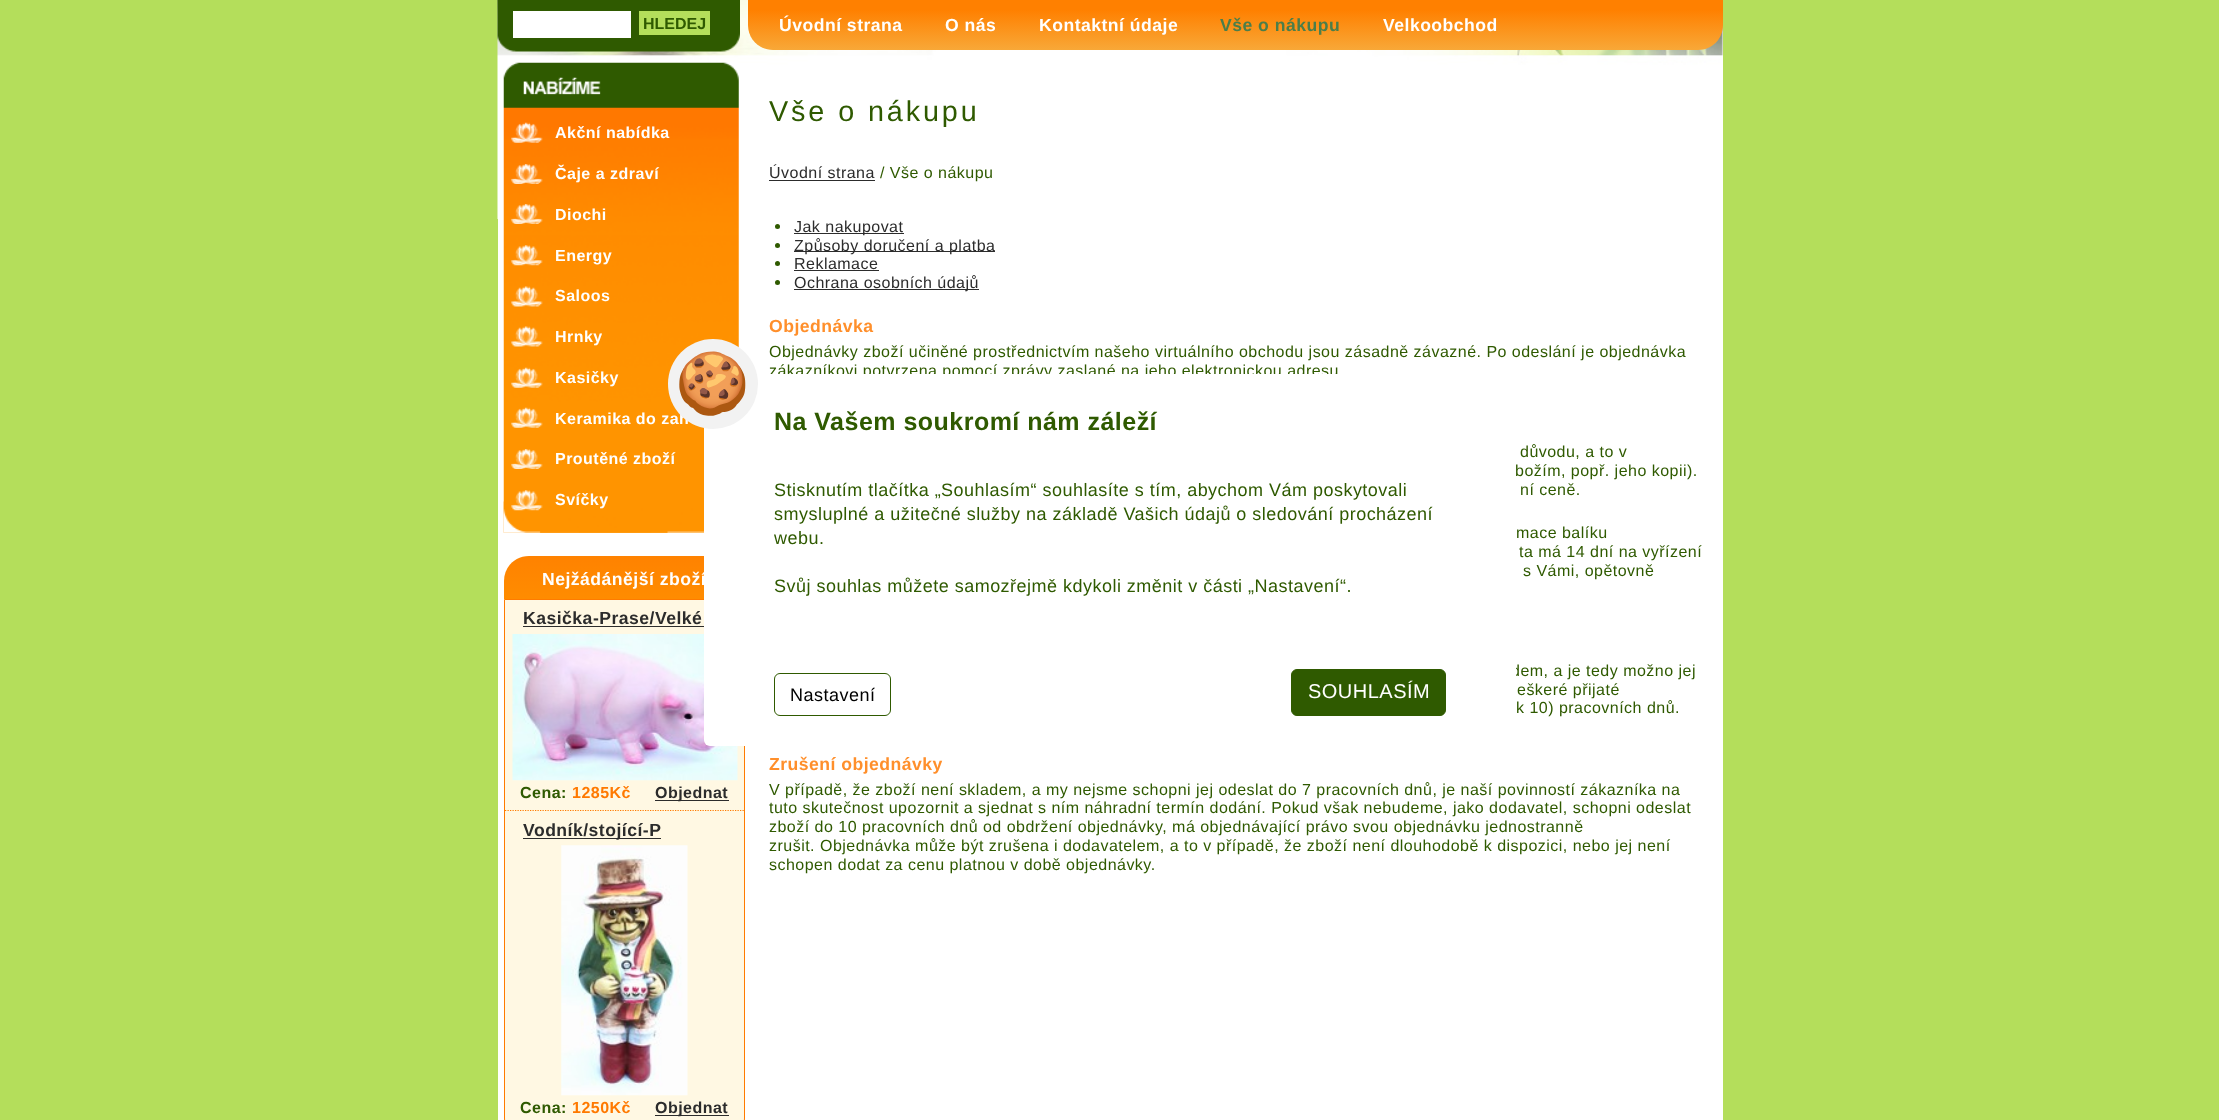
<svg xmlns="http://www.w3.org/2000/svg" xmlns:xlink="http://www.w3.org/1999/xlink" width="2219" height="1120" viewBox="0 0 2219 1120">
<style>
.cls-1{font:bold 16px Liberation Sans;fill:#2f5a00}
.cls-2{font:bold 16px Liberation Sans;letter-spacing:0.48px;fill:#ffffff}
.cls-3{font:bold 17.6px Liberation Sans;letter-spacing:0.48px;fill:#ffffff}
.cls-4{font:bold 17.6px Liberation Sans;letter-spacing:0.48px;fill:#2c2c2c}
.cls-5{font:bold 16px Liberation Sans;letter-spacing:0.48px;fill:#2f5a00}
.cls-6{font:bold 16px Liberation Sans;letter-spacing:0.48px;fill:#ff7900}
.cls-7{font:bold 16px Liberation Sans;letter-spacing:0.48px;fill:#2c2c2c}
.cls-8{font:bold 17.6px Liberation Sans;letter-spacing:0.48px;fill:#4b7e4a}
.cls-9{font:28.75px Liberation Sans;letter-spacing:2.9px;fill:#2f5a00}
.cls-10{font:16px Liberation Sans;letter-spacing:0.48px;fill:#2c2c2c}
.cls-11{font:16px Liberation Sans;letter-spacing:0.48px;fill:#2f5a00}
.cls-12{font:bold 17.6px Liberation Sans;letter-spacing:0.48px;fill:#ff8f2b}
.cls-13{font:60px Noto Color Emoji;letter-spacing:0.48px;fill:#2f5a00}
.cls-14{font:bold 25px Liberation Sans;letter-spacing:0.48px;fill:#2f5a00}
.cls-15{font:18px Liberation Sans;letter-spacing:0.48px;fill:#2f5a00}
.cls-16{font:18px Liberation Sans;letter-spacing:0.48px;fill:#000000}
.cls-17{font:20px Liberation Sans;letter-spacing:0.48px;fill:#ffffff}
</style>
<defs>
<linearGradient id="g1" gradientUnits="userSpaceOnUse" x1="624" y1="599" x2="624" y2="556"><stop offset="0" stop-color="#ff8c00"/><stop offset="1" stop-color="#ff8200"/></linearGradient>
<linearGradient id="g2" gradientUnits="userSpaceOnUse" x1="1235" y1="50" x2="1235" y2="0"><stop offset="0" stop-color="#f8a838"/><stop offset="0.8" stop-color="#ff8000"/></linearGradient>
</defs>
<rect width="100%" height="100%" fill="#b4de5b"/>
<rect fill="#ffffff" x="498" y="25" width="1225" height="1095"/>
<image xlink:href="image0.png" x="497" y="0" width="1226" height="219"/>
<image xlink:href="image1.png" x="497" y="0" width="243" height="52"/>
<rect fill="#ffffff" x="513" y="11" width="118" height="27"/>
<rect fill="#b4de5b" x="639" y="11" width="71" height="24"/>
<image xlink:href="image2.png" x="503" y="62" width="236" height="471"/>
<image xlink:href="image3.png" x="503" y="501" width="201" height="32"/>
<image xlink:href="image4.png" x="511" y="122" width="32" height="21"/>
<image xlink:href="image5.png" x="511" y="164" width="32" height="20"/>
<image xlink:href="image6.png" x="511" y="204" width="32" height="20"/>
<image xlink:href="image7.png" x="511" y="245" width="32" height="21"/>
<image xlink:href="image8.png" x="511" y="286" width="32" height="21"/>
<image xlink:href="image9.png" x="511" y="326" width="32" height="21"/>
<image xlink:href="image10.png" x="511" y="367" width="32" height="21"/>
<image xlink:href="image11.png" x="511" y="407" width="32" height="21"/>
<image xlink:href="image12.png" x="511" y="449" width="32" height="20"/>
<image xlink:href="image13.png" x="511" y="490" width="32" height="21"/>
<path fill="url(#g1)" d="M529 556H720C734 556 745 567 745 581V599H504V581C504 567 515 556 529 556Z"/>
<path fill="#fff8e3" stroke="#ff7b00" d="M504.5 599.5H744.5V1118C744.5 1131.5 733.5 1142.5 720 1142.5H529C515.5 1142.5 504.5 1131.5 504.5 1118Z"/>
<rect fill="#2c2c2c" x="523" y="626" width="181" height="1"/>
<image xlink:href="image14.png" x="512" y="634" width="226" height="147"/>
<rect fill="#2c2c2c" x="655" y="800" width="74" height="1"/>
<path fill="none" stroke="#ff7b00" stroke-width="1.2" stroke-dasharray="1.25 1.25" d="M505 810.5H744"/>
<rect fill="#2c2c2c" x="523" y="838" width="138" height="1"/>
<image xlink:href="image15.png" x="561" y="845" width="127" height="251"/>
<rect fill="#2c2c2c" x="655" y="1115" width="74" height="1"/>
<path fill="url(#g2)" d="M748 0H1723V25C1723 39 1712 50 1698 50H773C759 50 748 39 748 25Z"/>
<rect fill="#2c2c2c" x="769" y="180" width="106" height="1"/>
<circle fill="#2f5a00" cx="777.5" cy="226.5" r="2.5"/>
<rect fill="#2c2c2c" x="794" y="233" width="110" height="1"/>
<circle fill="#2f5a00" cx="777.5" cy="245.5" r="2.5"/>
<rect fill="#2c2c2c" x="794" y="251" width="201" height="1"/>
<circle fill="#2f5a00" cx="777.5" cy="263.5" r="2.5"/>
<rect fill="#2c2c2c" x="794" y="270" width="85" height="1"/>
<circle fill="#2f5a00" cx="777.5" cy="282.5" r="2.5"/>
<rect fill="#2c2c2c" x="794" y="289" width="185" height="1"/>
<text class="cls-1" x="643" y="29">HLEDEJ</text>
<text class="cls-2" x="555" y="138">Akční nabídka</text>
<text class="cls-2" x="555" y="179">Čaje a zdraví</text>
<text class="cls-2" x="555" y="220">Diochi</text>
<text class="cls-2" x="555" y="261">Energy</text>
<text class="cls-2" x="555" y="301">Saloos</text>
<text class="cls-2" x="555" y="342">Hrnky</text>
<text class="cls-2" x="555" y="383">Kasičky</text>
<text class="cls-2" x="555" y="424">Keramika do zah</text>
<text class="cls-2" x="555" y="464">Proutěné zboží</text>
<text class="cls-2" x="555" y="505">Svíčky</text>
<text class="cls-3" x="542" y="585">Nejžádánější zboží</text>
<text class="cls-4" x="523" y="624">Kasička-Prase/Velké</text>
<text class="cls-5" x="520" y="798">Cena:</text>
<text class="cls-6" x="572" y="798">1285Kč</text>
<text class="cls-7" x="655" y="798">Objednat</text>
<text class="cls-4" x="523" y="836">Vodník/stojící-P</text>
<text class="cls-5" x="520" y="1113">Cena:</text>
<text class="cls-6" x="572" y="1113">1250Kč</text>
<text class="cls-7" x="655" y="1113">Objednat</text>
<text class="cls-3" x="779" y="31">Úvodní strana</text>
<text class="cls-3" x="945" y="31">O nás</text>
<text class="cls-3" x="1039" y="31">Kontaktní údaje</text>
<text class="cls-8" x="1220" y="31">Vše o nákupu</text>
<text class="cls-3" x="1383" y="31">Velkoobchod</text>
<text class="cls-9" x="769" y="121">Vše o nákupu</text>
<text class="cls-10" x="769" y="178">Úvodní strana</text>
<text class="cls-11" x="880" y="178">/ Vše o nákupu</text>
<text class="cls-10"><tspan x="794" y="232">Jak nakupovat</tspan><tspan x="794" y="251">Způsoby doručení a platba</tspan><tspan x="794" y="269">Reklamace</tspan><tspan x="794" y="288">Ochrana osobních údajů</tspan></text>
<text class="cls-12" x="769" y="332">Objednávka</text>
<text class="cls-11"><tspan x="769" y="357">Objednávky zboží učiněné prostřednictvím našeho virtuálního obchodu jsou zásadně závazné. Po odeslání je objednávka</tspan><tspan x="769" y="376">zákazníkovi potvrzena pomocí zprávy zaslané na jeho elektronickou adresu</tspan></text>
<text class="cls-11" x="1520" y="457">důvodu, a to v</text>
<text class="cls-11" x="1515" y="476">božím, popř. jeho kopii).</text>
<text class="cls-11" x="1520" y="495">ní ceně.</text>
<text class="cls-11" x="1516" y="538">mace balíku</text>
<text class="cls-11" x="1519" y="557">ta má 14 dní na vyřízení</text>
<text class="cls-11" x="1523" y="576">s Vámi, opětovně</text>
<text class="cls-11" x="1511" y="676">dem, a je tedy možno jej</text>
<text class="cls-11" x="1517" y="695">eškeré přijaté</text>
<text class="cls-11" x="1516" y="713">k 10) pracovních dnů.</text>
<text class="cls-12" x="769" y="770">Zrušení objednávky</text>
<text class="cls-11"><tspan x="769" y="795">V případě, že zboží není skladem, a my nejsme schopni jej odeslat do 7 pracovních dnů, je naší povinností zákazníka na</tspan><tspan x="769" y="813">tuto skutečnost upozornit a sjednat s ním náhradní termín dodání. Pokud však nebudeme, jako dodavatel, schopni odeslat</tspan><tspan x="769" y="832">zboží do 10 pracovních dnů od obdržení objednávky, má objednávající právo svou objednávku jednostranně</tspan><tspan x="769" y="851">zrušit. Objednávka může být zrušena i dodavatelem, a to v případě, že zboží není dlouhodobě k dispozici, nebo jej není</tspan><tspan x="769" y="870">schopen dodat za cenu platnou v době objednávky.</tspan></text>
<rect fill="#ffffff" x="704" y="374" width="812" height="372" rx="6"/>
<circle fill="#f2f2f2" cx="713" cy="384" r="45"/>
<text class="cls-13" x="675" y="404">🍪</text>
<text class="cls-14" x="774" y="430">Na Vašem soukromí nám záleží</text>
<text class="cls-15"><tspan x="774" y="496">Stisknutím tlačítka „Souhlasím“ souhlasíte s tím, abychom Vám poskytovali</tspan><tspan x="774" y="520">smysluplné a užitečné služby na základě Vašich údajů o sledování procházení</tspan><tspan x="774" y="544">webu.</tspan></text>
<text class="cls-15" x="774" y="592">Svůj souhlas můžete samozřejmě kdykoli změnit v části „Nastavení“.</text>
<rect fill="none" stroke="#2f5a00" x="774.5" y="673.5" width="116" height="42" rx="5.5"/>
<text class="cls-16" x="790" y="701">Nastavení</text>
<rect fill="#2f5a00" stroke="#2f5a00" x="1291.5" y="669.5" width="154" height="46" rx="5.5"/>
<text class="cls-17" x="1308" y="698">SOUHLASÍM</text>
</svg>
